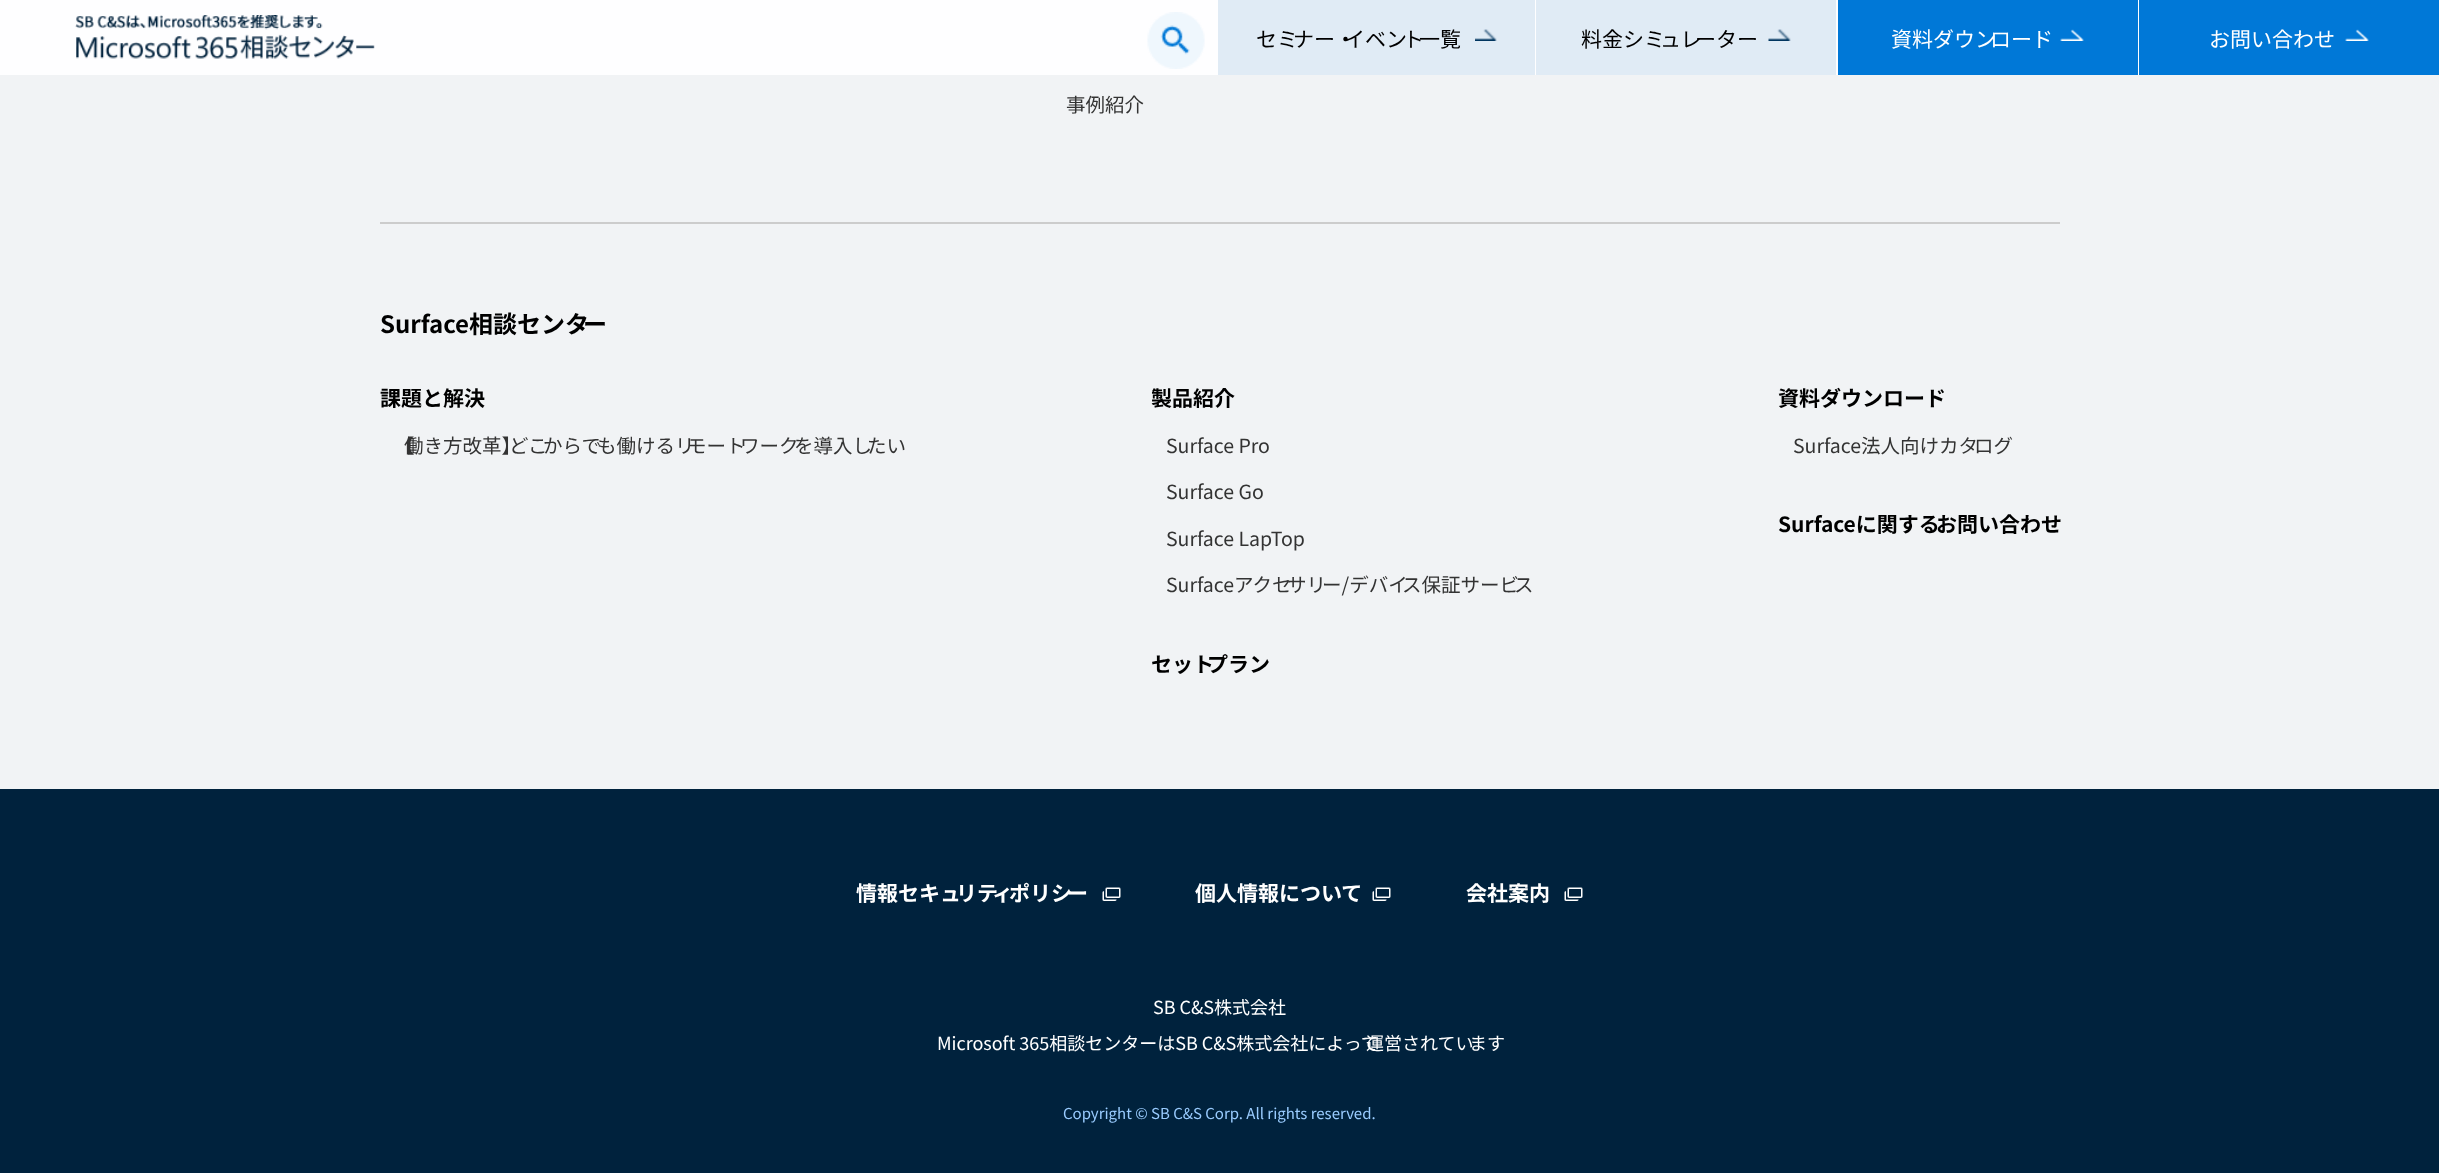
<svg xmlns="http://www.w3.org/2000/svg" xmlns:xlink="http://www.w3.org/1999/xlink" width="2439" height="1173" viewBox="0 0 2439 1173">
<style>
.cls-1{font:21px Noto Sans JP;fill:#000000}
.cls-2{font:21px Noto Sans JP;fill:#ffffff}
.cls-3{font:19.5px Noto Sans JP;fill:#333333}
.cls-4{font:bold 24px Noto Sans JP;fill:#000000}
.cls-5{font:bold 21px Noto Sans JP;fill:#000000}
.cls-6{font:bold 21px Noto Sans JP;fill:#ffffff}
.cls-7{font:18px Noto Sans JP;fill:#ffffff}
.cls-8{font:18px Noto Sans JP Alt;fill:#ffffff}
.cls-9{font:15px Noto Sans JP;fill:#99ccff}
</style>
<rect width="100%" height="100%" fill="#f1f3f5"/>
<rect fill="#fefeff" x="0" y="0" width="2139" height="75"/>
<image xlink:href="image0.png" x="75" y="15" width="300" height="44"/>
<image xlink:href="image1.png" x="1147" y="12" width="58" height="57"/>
<rect fill="#e0ebf5" x="1218" y="0" width="317" height="75"/>
<image xlink:href="image2.png" x="1475" y="29" width="22" height="12"/>
<rect fill="#e0ebf5" x="1536" y="0" width="300" height="75"/>
<image xlink:href="image3.png" x="1768" y="29" width="23" height="12"/>
<rect fill="#0078d7" x="1838" y="0" width="300" height="75"/>
<image xlink:href="image4.png" x="2060" y="29" width="24" height="12"/>
<rect fill="#0078d7" x="2139" y="0" width="300" height="75"/>
<image xlink:href="image4.png" x="2345" y="29" width="24" height="12"/>
<rect fill="#cccccc" x="380" y="222" width="1680" height="2"/>
<rect fill="#00223d" x="0" y="789" width="2439" height="384"/>
<image xlink:href="image5.png" x="1102" y="887" width="19" height="14"/>
<image xlink:href="image6.png" x="1372" y="887" width="19" height="14"/>
<image xlink:href="image5.png" x="1564" y="887" width="19" height="14"/>
<text class="cls-1" x="1256" y="47">セミ</text>
<text class="cls-1" x="1293" y="47">ナー・</text>
<text class="cls-1" x="1344" y="47">イベン</text>
<text class="cls-1" x="1403" y="47">ト</text>
<text class="cls-1" x="1419" y="47">一覧</text>
<text class="cls-1" x="1581" y="47">料金シミ</text>
<text class="cls-1" x="1660" y="47">ュレ</text>
<text class="cls-1" x="1695" y="47">ーター</text>
<text class="cls-2" x="1891" y="47">資料ダウン</text>
<text class="cls-2" x="1990" y="47">ロード</text>
<text class="cls-2" x="2209" y="47">お問い合わせ</text>
<text class="cls-3" x="1066" y="112">事例紹介</text>
<text class="cls-4" x="380" y="333">Surface相談センタ</text>
<text class="cls-4" x="583" y="333">ー</text>
<text class="cls-5" x="380" y="406">課題と解決</text>
<text class="cls-3" x="395" y="453">【</text>
<text class="cls-3" x="404" y="453">働き方改革】</text>
<text class="cls-3" x="509" y="453">どこ</text>
<text class="cls-3" x="543" y="453">からで</text>
<text class="cls-3" x="597" y="453">も働けるリ</text>
<text class="cls-3" x="687" y="453">モート</text>
<text class="cls-3" x="740" y="453">ワーク</text>
<text class="cls-3" x="794" y="453">を導入し</text>
<text class="cls-3" x="867" y="453">たい</text>
<text class="cls-5" x="1151" y="406">製品紹介</text>
<text class="cls-3" x="1166" y="453">Surface Pro</text>
<text class="cls-3" x="1166" y="499">Surface Go</text>
<text class="cls-3" x="1166" y="546">Surface LapTop</text>
<text class="cls-3" x="1166" y="592">Surfaceアクセ</text>
<text class="cls-3" x="1287" y="592">サリ</text>
<text class="cls-3" x="1322" y="592">ー/デバイ</text>
<text class="cls-3" x="1402" y="592">ス保証サービ</text>
<text class="cls-3" x="1514" y="592">ス</text>
<text class="cls-5" x="1151" y="672">セット</text>
<text class="cls-5" x="1207" y="672">プラン</text>
<text class="cls-5" x="1778" y="406">資料ダウンロード</text>
<text class="cls-3" x="1793" y="453">Surface法人向けカタ</text>
<text class="cls-3" x="1974" y="453">ログ</text>
<text class="cls-5" x="1778" y="532">Surfaceに関する</text>
<text class="cls-5" x="1936" y="532">お問い合わせ</text>
<text class="cls-6" x="856" y="901">情報セキュ</text>
<text class="cls-6" x="956" y="901">リテ</text>
<text class="cls-6" x="992" y="901">ィ</text>
<text class="cls-6" x="1009" y="901">ポリシ</text>
<text class="cls-6" x="1067" y="901">ー</text>
<text class="cls-6" x="1195" y="901">個人情報について</text>
<text class="cls-6" x="1466" y="901">会社案内</text>
<text class="cls-7" x="1153" y="1014">SB C&amp;S株式会社</text>
<text class="cls-8" x="937" y="1050">Microsoft 365相談センターはSB C&amp;S株式会社によって</text>
<text class="cls-7" x="1366" y="1050">運営されてい</text>
<text class="cls-7" x="1469" y="1050">ます</text>
<text class="cls-9" x="1063" y="1119">Copyright © SB C&amp;S Corp. All rights reserved.</text>
</svg>
